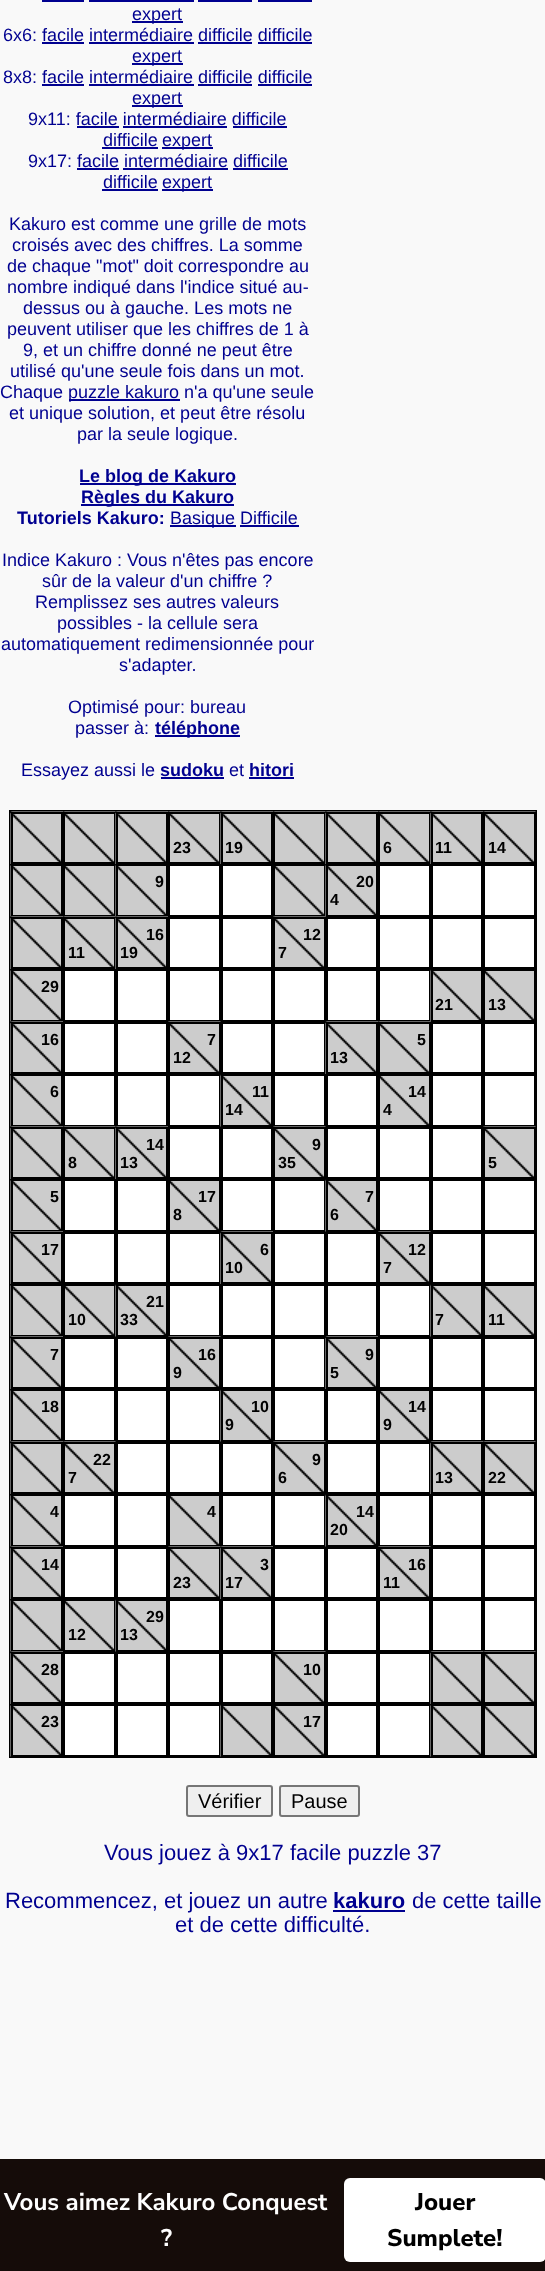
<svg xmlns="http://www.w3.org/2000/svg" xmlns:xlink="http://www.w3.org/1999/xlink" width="545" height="2271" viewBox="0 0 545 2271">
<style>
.cls-1{font:18px Liberation Sans;fill:#000090}
.cls-2{font:bold 18px Liberation Sans;fill:#000090}
.cls-3{font:bold 16px Liberation Sans;fill:#000000}
.cls-4{font:20px Liberation Sans;fill:#000000}
.cls-5{font:22px Liberation Sans;fill:#000090}
.cls-6{font:bold 22px Liberation Sans;fill:#000090}
.cls-7{font:bold 24px Nunito Sans;fill:#ffffff}
.cls-8{font:800 24px Nunito Sans;fill:#000000}
</style>
<rect width="100%" height="100%" fill="#f9f9f9"/>
<rect fill="#000090" x="42" y="0" width="42" height="2"/>
<rect fill="#000090" x="89" y="0" width="105" height="2"/>
<rect fill="#000090" x="198" y="0" width="54" height="2"/>
<rect fill="#000090" x="258" y="0" width="54" height="2"/>
<rect fill="#000090" x="132" y="21" width="51" height="2"/>
<rect fill="#000090" x="42" y="42" width="42" height="2"/>
<rect fill="#000090" x="89" y="42" width="105" height="2"/>
<rect fill="#000090" x="198" y="42" width="54" height="2"/>
<rect fill="#000090" x="258" y="42" width="54" height="2"/>
<rect fill="#000090" x="132" y="63" width="51" height="2"/>
<rect fill="#000090" x="42" y="84" width="42" height="2"/>
<rect fill="#000090" x="89" y="84" width="105" height="2"/>
<rect fill="#000090" x="198" y="84" width="54" height="2"/>
<rect fill="#000090" x="258" y="84" width="54" height="2"/>
<rect fill="#000090" x="132" y="105" width="51" height="2"/>
<rect fill="#000090" x="77" y="126" width="42" height="2"/>
<rect fill="#000090" x="123" y="126" width="104" height="2"/>
<rect fill="#000090" x="233" y="126" width="54" height="2"/>
<rect fill="#000090" x="102" y="147" width="56" height="2"/>
<rect fill="#000090" x="162" y="147" width="51" height="2"/>
<rect fill="#000090" x="77" y="168" width="42" height="2"/>
<rect fill="#000090" x="123" y="168" width="105" height="2"/>
<rect fill="#000090" x="233" y="168" width="55" height="2"/>
<rect fill="#000090" x="102" y="189" width="56" height="2"/>
<rect fill="#000090" x="162" y="189" width="51" height="2"/>
<rect fill="#000090" x="69" y="399" width="111" height="2"/>
<rect fill="#000090" x="80" y="483" width="156" height="2"/>
<rect fill="#000090" x="81" y="504" width="153" height="2"/>
<rect fill="#000090" x="170" y="525" width="66" height="2"/>
<rect fill="#000090" x="240" y="525" width="59" height="2"/>
<rect fill="#000090" x="155" y="735" width="85" height="2"/>
<rect fill="#000090" x="161" y="777" width="63" height="2"/>
<rect fill="#000090" x="249" y="777" width="45" height="2"/>
<rect fill="none" stroke="#000000" stroke-width="2" x="10" y="811" width="526" height="946"/>
<image xlink:href="image0.png" x="10" y="811" width="53" height="53"/>
<rect fill="none" stroke="#000000" stroke-width="2" x="12" y="813" width="50" height="50"/>
<image xlink:href="image1.png" x="63" y="811" width="53" height="51"/>
<rect fill="none" stroke="#000000" stroke-width="2" x="64" y="813" width="51" height="50"/>
<image xlink:href="image2.png" x="115" y="811" width="53" height="53"/>
<rect fill="none" stroke="#000000" stroke-width="2" x="117" y="813" width="50" height="50"/>
<image xlink:href="image1.png" x="168" y="811" width="53" height="51"/>
<rect fill="none" stroke="#000000" stroke-width="2" x="169" y="813" width="51" height="50"/>
<image xlink:href="image2.png" x="220" y="811" width="53" height="53"/>
<rect fill="none" stroke="#000000" stroke-width="2" x="222" y="813" width="50" height="50"/>
<image xlink:href="image1.png" x="273" y="811" width="53" height="51"/>
<rect fill="none" stroke="#000000" stroke-width="2" x="274" y="813" width="51" height="50"/>
<image xlink:href="image2.png" x="325" y="811" width="53" height="53"/>
<rect fill="none" stroke="#000000" stroke-width="2" x="327" y="813" width="50" height="50"/>
<image xlink:href="image1.png" x="378" y="811" width="53" height="51"/>
<rect fill="none" stroke="#000000" stroke-width="2" x="379" y="813" width="51" height="50"/>
<image xlink:href="image2.png" x="430" y="811" width="53" height="53"/>
<rect fill="none" stroke="#000000" stroke-width="2" x="432" y="813" width="50" height="50"/>
<image xlink:href="image3.png" x="483" y="811" width="53" height="51"/>
<rect fill="none" stroke="#000000" stroke-width="2" x="484" y="813" width="51" height="50"/>
<image xlink:href="image4.png" x="10" y="864" width="51" height="53"/>
<rect fill="none" stroke="#000000" stroke-width="2" x="12" y="865" width="50" height="51"/>
<image xlink:href="image5.png" x="65" y="866" width="49" height="49"/>
<rect fill="none" stroke="#000000" stroke-width="2" x="64" y="865" width="51" height="51"/>
<image xlink:href="image4.png" x="115" y="864" width="51" height="53"/>
<rect fill="none" stroke="#000000" stroke-width="2" x="117" y="865" width="50" height="51"/>
<rect fill="#ffffff" stroke="#000000" stroke-width="2" x="169" y="865" width="51" height="51"/>
<rect fill="#ffffff" stroke="#000000" stroke-width="2" x="222" y="865" width="50" height="51"/>
<image xlink:href="image5.png" x="275" y="866" width="49" height="49"/>
<rect fill="none" stroke="#000000" stroke-width="2" x="274" y="865" width="51" height="51"/>
<image xlink:href="image4.png" x="325" y="864" width="51" height="53"/>
<rect fill="none" stroke="#000000" stroke-width="2" x="327" y="865" width="50" height="51"/>
<rect fill="#ffffff" stroke="#000000" stroke-width="2" x="379" y="865" width="51" height="51"/>
<rect fill="#ffffff" stroke="#000000" stroke-width="2" x="432" y="865" width="50" height="51"/>
<rect fill="#ffffff" stroke="#000000" stroke-width="2" x="484" y="865" width="51" height="51"/>
<image xlink:href="image2.png" x="10" y="916" width="53" height="53"/>
<rect fill="none" stroke="#000000" stroke-width="2" x="12" y="918" width="50" height="50"/>
<image xlink:href="image6.png" x="63" y="916" width="53" height="51"/>
<rect fill="none" stroke="#000000" stroke-width="2" x="64" y="918" width="51" height="50"/>
<image xlink:href="image7.png" x="115" y="916" width="53" height="53"/>
<rect fill="none" stroke="#000000" stroke-width="2" x="117" y="918" width="50" height="50"/>
<rect fill="#ffffff" stroke="#000000" stroke-width="2" x="169" y="918" width="51" height="50"/>
<rect fill="#ffffff" stroke="#000000" stroke-width="2" x="222" y="918" width="50" height="50"/>
<image xlink:href="image6.png" x="273" y="916" width="53" height="51"/>
<rect fill="none" stroke="#000000" stroke-width="2" x="274" y="918" width="51" height="50"/>
<rect fill="#ffffff" stroke="#000000" stroke-width="2" x="327" y="918" width="50" height="50"/>
<rect fill="#ffffff" stroke="#000000" stroke-width="2" x="379" y="918" width="51" height="50"/>
<rect fill="#ffffff" stroke="#000000" stroke-width="2" x="432" y="918" width="50" height="50"/>
<rect fill="#ffffff" stroke="#000000" stroke-width="2" x="484" y="918" width="51" height="50"/>
<image xlink:href="image4.png" x="10" y="969" width="51" height="53"/>
<rect fill="none" stroke="#000000" stroke-width="2" x="12" y="970" width="50" height="51"/>
<rect fill="#ffffff" stroke="#000000" stroke-width="2" x="64" y="970" width="51" height="51"/>
<rect fill="#ffffff" stroke="#000000" stroke-width="2" x="117" y="970" width="50" height="51"/>
<rect fill="#ffffff" stroke="#000000" stroke-width="2" x="169" y="970" width="51" height="51"/>
<rect fill="#ffffff" stroke="#000000" stroke-width="2" x="222" y="970" width="50" height="51"/>
<rect fill="#ffffff" stroke="#000000" stroke-width="2" x="274" y="970" width="51" height="51"/>
<rect fill="#ffffff" stroke="#000000" stroke-width="2" x="327" y="970" width="50" height="51"/>
<rect fill="#ffffff" stroke="#000000" stroke-width="2" x="379" y="970" width="51" height="51"/>
<image xlink:href="image4.png" x="430" y="969" width="51" height="53"/>
<rect fill="none" stroke="#000000" stroke-width="2" x="432" y="970" width="50" height="51"/>
<image xlink:href="image5.png" x="485" y="971" width="49" height="49"/>
<rect fill="none" stroke="#000000" stroke-width="2" x="484" y="970" width="51" height="51"/>
<image xlink:href="image2.png" x="10" y="1021" width="53" height="53"/>
<rect fill="none" stroke="#000000" stroke-width="2" x="12" y="1023" width="50" height="50"/>
<rect fill="#ffffff" stroke="#000000" stroke-width="2" x="64" y="1023" width="51" height="50"/>
<rect fill="#ffffff" stroke="#000000" stroke-width="2" x="117" y="1023" width="50" height="50"/>
<image xlink:href="image1.png" x="168" y="1021" width="53" height="51"/>
<rect fill="none" stroke="#000000" stroke-width="2" x="169" y="1023" width="51" height="50"/>
<rect fill="#ffffff" stroke="#000000" stroke-width="2" x="222" y="1023" width="50" height="50"/>
<rect fill="#ffffff" stroke="#000000" stroke-width="2" x="274" y="1023" width="51" height="50"/>
<image xlink:href="image6.png" x="378" y="1021" width="53" height="51"/>
<rect fill="none" stroke="#000000" stroke-width="2" x="379" y="1023" width="51" height="50"/>
<rect fill="#ffffff" stroke="#000000" stroke-width="2" x="432" y="1023" width="50" height="50"/>
<rect fill="#ffffff" stroke="#000000" stroke-width="2" x="484" y="1023" width="51" height="50"/>
<image xlink:href="image0.png" x="325" y="1021" width="53" height="53"/>
<rect fill="none" stroke="#000000" stroke-width="2" x="327" y="1023" width="50" height="50"/>
<image xlink:href="image4.png" x="10" y="1074" width="51" height="53"/>
<rect fill="none" stroke="#000000" stroke-width="2" x="12" y="1075" width="50" height="51"/>
<rect fill="#ffffff" stroke="#000000" stroke-width="2" x="64" y="1075" width="51" height="51"/>
<rect fill="#ffffff" stroke="#000000" stroke-width="2" x="117" y="1075" width="50" height="51"/>
<rect fill="#ffffff" stroke="#000000" stroke-width="2" x="169" y="1075" width="51" height="51"/>
<image xlink:href="image4.png" x="220" y="1074" width="51" height="53"/>
<rect fill="none" stroke="#000000" stroke-width="2" x="222" y="1075" width="50" height="51"/>
<rect fill="#ffffff" stroke="#000000" stroke-width="2" x="274" y="1075" width="51" height="51"/>
<rect fill="#ffffff" stroke="#000000" stroke-width="2" x="327" y="1075" width="50" height="51"/>
<image xlink:href="image5.png" x="380" y="1076" width="49" height="49"/>
<rect fill="none" stroke="#000000" stroke-width="2" x="379" y="1075" width="51" height="51"/>
<rect fill="#ffffff" stroke="#000000" stroke-width="2" x="432" y="1075" width="50" height="51"/>
<rect fill="#ffffff" stroke="#000000" stroke-width="2" x="484" y="1075" width="51" height="51"/>
<image xlink:href="image2.png" x="10" y="1126" width="53" height="53"/>
<rect fill="none" stroke="#000000" stroke-width="2" x="12" y="1128" width="50" height="50"/>
<image xlink:href="image1.png" x="63" y="1126" width="53" height="51"/>
<rect fill="none" stroke="#000000" stroke-width="2" x="64" y="1128" width="51" height="50"/>
<image xlink:href="image2.png" x="115" y="1126" width="53" height="53"/>
<rect fill="none" stroke="#000000" stroke-width="2" x="117" y="1128" width="50" height="50"/>
<rect fill="#ffffff" stroke="#000000" stroke-width="2" x="169" y="1128" width="51" height="50"/>
<rect fill="#ffffff" stroke="#000000" stroke-width="2" x="222" y="1128" width="50" height="50"/>
<image xlink:href="image1.png" x="273" y="1126" width="53" height="51"/>
<rect fill="none" stroke="#000000" stroke-width="2" x="274" y="1128" width="51" height="50"/>
<rect fill="#ffffff" stroke="#000000" stroke-width="2" x="327" y="1128" width="50" height="50"/>
<rect fill="#ffffff" stroke="#000000" stroke-width="2" x="379" y="1128" width="51" height="50"/>
<rect fill="#ffffff" stroke="#000000" stroke-width="2" x="432" y="1128" width="50" height="50"/>
<image xlink:href="image3.png" x="483" y="1126" width="53" height="51"/>
<rect fill="none" stroke="#000000" stroke-width="2" x="484" y="1128" width="51" height="50"/>
<image xlink:href="image4.png" x="10" y="1179" width="51" height="53"/>
<rect fill="none" stroke="#000000" stroke-width="2" x="12" y="1180" width="50" height="51"/>
<rect fill="#ffffff" stroke="#000000" stroke-width="2" x="64" y="1180" width="51" height="51"/>
<rect fill="#ffffff" stroke="#000000" stroke-width="2" x="117" y="1180" width="50" height="51"/>
<image xlink:href="image5.png" x="170" y="1181" width="49" height="49"/>
<rect fill="none" stroke="#000000" stroke-width="2" x="169" y="1180" width="51" height="51"/>
<rect fill="#ffffff" stroke="#000000" stroke-width="2" x="222" y="1180" width="50" height="51"/>
<rect fill="#ffffff" stroke="#000000" stroke-width="2" x="274" y="1180" width="51" height="51"/>
<image xlink:href="image4.png" x="325" y="1179" width="51" height="53"/>
<rect fill="none" stroke="#000000" stroke-width="2" x="327" y="1180" width="50" height="51"/>
<rect fill="#ffffff" stroke="#000000" stroke-width="2" x="379" y="1180" width="51" height="51"/>
<rect fill="#ffffff" stroke="#000000" stroke-width="2" x="432" y="1180" width="50" height="51"/>
<rect fill="#ffffff" stroke="#000000" stroke-width="2" x="484" y="1180" width="51" height="51"/>
<image xlink:href="image2.png" x="10" y="1231" width="53" height="53"/>
<rect fill="none" stroke="#000000" stroke-width="2" x="12" y="1233" width="50" height="50"/>
<rect fill="#ffffff" stroke="#000000" stroke-width="2" x="64" y="1233" width="51" height="50"/>
<rect fill="#ffffff" stroke="#000000" stroke-width="2" x="117" y="1233" width="50" height="50"/>
<rect fill="#ffffff" stroke="#000000" stroke-width="2" x="169" y="1233" width="51" height="50"/>
<image xlink:href="image0.png" x="220" y="1231" width="53" height="53"/>
<rect fill="none" stroke="#000000" stroke-width="2" x="222" y="1233" width="50" height="50"/>
<rect fill="#ffffff" stroke="#000000" stroke-width="2" x="274" y="1233" width="51" height="50"/>
<rect fill="#ffffff" stroke="#000000" stroke-width="2" x="327" y="1233" width="50" height="50"/>
<image xlink:href="image1.png" x="378" y="1231" width="53" height="51"/>
<rect fill="none" stroke="#000000" stroke-width="2" x="379" y="1233" width="51" height="50"/>
<rect fill="#ffffff" stroke="#000000" stroke-width="2" x="432" y="1233" width="50" height="50"/>
<rect fill="#ffffff" stroke="#000000" stroke-width="2" x="484" y="1233" width="51" height="50"/>
<image xlink:href="image4.png" x="10" y="1284" width="51" height="53"/>
<rect fill="none" stroke="#000000" stroke-width="2" x="12" y="1285" width="50" height="51"/>
<image xlink:href="image5.png" x="65" y="1286" width="49" height="49"/>
<rect fill="none" stroke="#000000" stroke-width="2" x="64" y="1285" width="51" height="51"/>
<image xlink:href="image4.png" x="115" y="1284" width="51" height="53"/>
<rect fill="none" stroke="#000000" stroke-width="2" x="117" y="1285" width="50" height="51"/>
<rect fill="#ffffff" stroke="#000000" stroke-width="2" x="169" y="1285" width="51" height="51"/>
<rect fill="#ffffff" stroke="#000000" stroke-width="2" x="222" y="1285" width="50" height="51"/>
<rect fill="#ffffff" stroke="#000000" stroke-width="2" x="274" y="1285" width="51" height="51"/>
<rect fill="#ffffff" stroke="#000000" stroke-width="2" x="327" y="1285" width="50" height="51"/>
<rect fill="#ffffff" stroke="#000000" stroke-width="2" x="379" y="1285" width="51" height="51"/>
<image xlink:href="image4.png" x="430" y="1284" width="51" height="53"/>
<rect fill="none" stroke="#000000" stroke-width="2" x="432" y="1285" width="50" height="51"/>
<image xlink:href="image5.png" x="485" y="1286" width="49" height="49"/>
<rect fill="none" stroke="#000000" stroke-width="2" x="484" y="1285" width="51" height="51"/>
<image xlink:href="image2.png" x="10" y="1336" width="53" height="53"/>
<rect fill="none" stroke="#000000" stroke-width="2" x="12" y="1338" width="50" height="50"/>
<rect fill="#ffffff" stroke="#000000" stroke-width="2" x="64" y="1338" width="51" height="50"/>
<rect fill="#ffffff" stroke="#000000" stroke-width="2" x="117" y="1338" width="50" height="50"/>
<image xlink:href="image1.png" x="168" y="1336" width="53" height="51"/>
<rect fill="none" stroke="#000000" stroke-width="2" x="169" y="1338" width="51" height="50"/>
<rect fill="#ffffff" stroke="#000000" stroke-width="2" x="222" y="1338" width="50" height="50"/>
<rect fill="#ffffff" stroke="#000000" stroke-width="2" x="274" y="1338" width="51" height="50"/>
<image xlink:href="image0.png" x="325" y="1336" width="53" height="53"/>
<rect fill="none" stroke="#000000" stroke-width="2" x="327" y="1338" width="50" height="50"/>
<rect fill="#ffffff" stroke="#000000" stroke-width="2" x="379" y="1338" width="51" height="50"/>
<rect fill="#ffffff" stroke="#000000" stroke-width="2" x="432" y="1338" width="50" height="50"/>
<rect fill="#ffffff" stroke="#000000" stroke-width="2" x="484" y="1338" width="51" height="50"/>
<image xlink:href="image4.png" x="10" y="1389" width="51" height="53"/>
<rect fill="none" stroke="#000000" stroke-width="2" x="12" y="1390" width="50" height="51"/>
<rect fill="#ffffff" stroke="#000000" stroke-width="2" x="64" y="1390" width="51" height="51"/>
<rect fill="#ffffff" stroke="#000000" stroke-width="2" x="117" y="1390" width="50" height="51"/>
<rect fill="#ffffff" stroke="#000000" stroke-width="2" x="169" y="1390" width="51" height="51"/>
<image xlink:href="image4.png" x="220" y="1389" width="51" height="53"/>
<rect fill="none" stroke="#000000" stroke-width="2" x="222" y="1390" width="50" height="51"/>
<rect fill="#ffffff" stroke="#000000" stroke-width="2" x="274" y="1390" width="51" height="51"/>
<rect fill="#ffffff" stroke="#000000" stroke-width="2" x="327" y="1390" width="50" height="51"/>
<image xlink:href="image5.png" x="380" y="1391" width="49" height="49"/>
<rect fill="none" stroke="#000000" stroke-width="2" x="379" y="1390" width="51" height="51"/>
<rect fill="#ffffff" stroke="#000000" stroke-width="2" x="432" y="1390" width="50" height="51"/>
<rect fill="#ffffff" stroke="#000000" stroke-width="2" x="484" y="1390" width="51" height="51"/>
<image xlink:href="image2.png" x="10" y="1441" width="53" height="53"/>
<rect fill="none" stroke="#000000" stroke-width="2" x="12" y="1443" width="50" height="50"/>
<image xlink:href="image1.png" x="63" y="1441" width="53" height="51"/>
<rect fill="none" stroke="#000000" stroke-width="2" x="64" y="1443" width="51" height="50"/>
<rect fill="#ffffff" stroke="#000000" stroke-width="2" x="117" y="1443" width="50" height="50"/>
<rect fill="#ffffff" stroke="#000000" stroke-width="2" x="169" y="1443" width="51" height="50"/>
<rect fill="#ffffff" stroke="#000000" stroke-width="2" x="222" y="1443" width="50" height="50"/>
<image xlink:href="image1.png" x="273" y="1441" width="53" height="51"/>
<rect fill="none" stroke="#000000" stroke-width="2" x="274" y="1443" width="51" height="50"/>
<rect fill="#ffffff" stroke="#000000" stroke-width="2" x="327" y="1443" width="50" height="50"/>
<rect fill="#ffffff" stroke="#000000" stroke-width="2" x="379" y="1443" width="51" height="50"/>
<image xlink:href="image0.png" x="430" y="1441" width="53" height="53"/>
<rect fill="none" stroke="#000000" stroke-width="2" x="432" y="1443" width="50" height="50"/>
<image xlink:href="image3.png" x="483" y="1441" width="53" height="51"/>
<rect fill="none" stroke="#000000" stroke-width="2" x="484" y="1443" width="51" height="50"/>
<image xlink:href="image4.png" x="10" y="1494" width="51" height="53"/>
<rect fill="none" stroke="#000000" stroke-width="2" x="12" y="1495" width="50" height="51"/>
<rect fill="#ffffff" stroke="#000000" stroke-width="2" x="64" y="1495" width="51" height="51"/>
<rect fill="#ffffff" stroke="#000000" stroke-width="2" x="117" y="1495" width="50" height="51"/>
<image xlink:href="image5.png" x="170" y="1496" width="49" height="49"/>
<rect fill="none" stroke="#000000" stroke-width="2" x="169" y="1495" width="51" height="51"/>
<rect fill="#ffffff" stroke="#000000" stroke-width="2" x="222" y="1495" width="50" height="51"/>
<rect fill="#ffffff" stroke="#000000" stroke-width="2" x="274" y="1495" width="51" height="51"/>
<image xlink:href="image4.png" x="325" y="1494" width="51" height="53"/>
<rect fill="none" stroke="#000000" stroke-width="2" x="327" y="1495" width="50" height="51"/>
<rect fill="#ffffff" stroke="#000000" stroke-width="2" x="379" y="1495" width="51" height="51"/>
<rect fill="#ffffff" stroke="#000000" stroke-width="2" x="432" y="1495" width="50" height="51"/>
<rect fill="#ffffff" stroke="#000000" stroke-width="2" x="484" y="1495" width="51" height="51"/>
<image xlink:href="image2.png" x="10" y="1546" width="53" height="53"/>
<rect fill="none" stroke="#000000" stroke-width="2" x="12" y="1548" width="50" height="50"/>
<rect fill="#ffffff" stroke="#000000" stroke-width="2" x="64" y="1548" width="51" height="50"/>
<rect fill="#ffffff" stroke="#000000" stroke-width="2" x="117" y="1548" width="50" height="50"/>
<image xlink:href="image1.png" x="168" y="1546" width="53" height="51"/>
<rect fill="none" stroke="#000000" stroke-width="2" x="169" y="1548" width="51" height="50"/>
<image xlink:href="image2.png" x="220" y="1546" width="53" height="53"/>
<rect fill="none" stroke="#000000" stroke-width="2" x="222" y="1548" width="50" height="50"/>
<rect fill="#ffffff" stroke="#000000" stroke-width="2" x="274" y="1548" width="51" height="50"/>
<rect fill="#ffffff" stroke="#000000" stroke-width="2" x="327" y="1548" width="50" height="50"/>
<image xlink:href="image1.png" x="378" y="1546" width="53" height="51"/>
<rect fill="none" stroke="#000000" stroke-width="2" x="379" y="1548" width="51" height="50"/>
<rect fill="#ffffff" stroke="#000000" stroke-width="2" x="432" y="1548" width="50" height="50"/>
<rect fill="#ffffff" stroke="#000000" stroke-width="2" x="484" y="1548" width="51" height="50"/>
<image xlink:href="image4.png" x="10" y="1599" width="51" height="53"/>
<rect fill="none" stroke="#000000" stroke-width="2" x="12" y="1600" width="50" height="51"/>
<image xlink:href="image5.png" x="65" y="1601" width="49" height="49"/>
<rect fill="none" stroke="#000000" stroke-width="2" x="64" y="1600" width="51" height="51"/>
<image xlink:href="image4.png" x="115" y="1599" width="51" height="53"/>
<rect fill="none" stroke="#000000" stroke-width="2" x="117" y="1600" width="50" height="51"/>
<rect fill="#ffffff" stroke="#000000" stroke-width="2" x="169" y="1600" width="51" height="51"/>
<rect fill="#ffffff" stroke="#000000" stroke-width="2" x="222" y="1600" width="50" height="51"/>
<rect fill="#ffffff" stroke="#000000" stroke-width="2" x="274" y="1600" width="51" height="51"/>
<rect fill="#ffffff" stroke="#000000" stroke-width="2" x="327" y="1600" width="50" height="51"/>
<rect fill="#ffffff" stroke="#000000" stroke-width="2" x="379" y="1600" width="51" height="51"/>
<rect fill="#ffffff" stroke="#000000" stroke-width="2" x="432" y="1600" width="50" height="51"/>
<rect fill="#ffffff" stroke="#000000" stroke-width="2" x="484" y="1600" width="51" height="51"/>
<image xlink:href="image2.png" x="10" y="1651" width="53" height="53"/>
<rect fill="none" stroke="#000000" stroke-width="2" x="12" y="1653" width="50" height="50"/>
<rect fill="#ffffff" stroke="#000000" stroke-width="2" x="64" y="1653" width="51" height="50"/>
<rect fill="#ffffff" stroke="#000000" stroke-width="2" x="117" y="1653" width="50" height="50"/>
<rect fill="#ffffff" stroke="#000000" stroke-width="2" x="169" y="1653" width="51" height="50"/>
<rect fill="#ffffff" stroke="#000000" stroke-width="2" x="222" y="1653" width="50" height="50"/>
<image xlink:href="image1.png" x="273" y="1651" width="53" height="51"/>
<rect fill="none" stroke="#000000" stroke-width="2" x="274" y="1653" width="51" height="50"/>
<rect fill="#ffffff" stroke="#000000" stroke-width="2" x="327" y="1653" width="50" height="50"/>
<rect fill="#ffffff" stroke="#000000" stroke-width="2" x="379" y="1653" width="51" height="50"/>
<image xlink:href="image0.png" x="430" y="1651" width="53" height="53"/>
<rect fill="none" stroke="#000000" stroke-width="2" x="432" y="1653" width="50" height="50"/>
<image xlink:href="image3.png" x="483" y="1651" width="53" height="51"/>
<rect fill="none" stroke="#000000" stroke-width="2" x="484" y="1653" width="51" height="50"/>
<image xlink:href="image4.png" x="10" y="1704" width="51" height="53"/>
<rect fill="none" stroke="#000000" stroke-width="2" x="12" y="1705" width="50" height="51"/>
<rect fill="#ffffff" stroke="#000000" stroke-width="2" x="64" y="1705" width="51" height="51"/>
<rect fill="#ffffff" stroke="#000000" stroke-width="2" x="117" y="1705" width="50" height="51"/>
<rect fill="#ffffff" stroke="#000000" stroke-width="2" x="169" y="1705" width="51" height="51"/>
<image xlink:href="image4.png" x="220" y="1704" width="51" height="53"/>
<rect fill="none" stroke="#000000" stroke-width="2" x="222" y="1705" width="50" height="51"/>
<image xlink:href="image5.png" x="275" y="1706" width="49" height="49"/>
<rect fill="none" stroke="#000000" stroke-width="2" x="274" y="1705" width="51" height="51"/>
<rect fill="#ffffff" stroke="#000000" stroke-width="2" x="327" y="1705" width="50" height="51"/>
<rect fill="#ffffff" stroke="#000000" stroke-width="2" x="379" y="1705" width="51" height="51"/>
<image xlink:href="image4.png" x="430" y="1704" width="51" height="53"/>
<rect fill="none" stroke="#000000" stroke-width="2" x="432" y="1705" width="50" height="51"/>
<image xlink:href="image5.png" x="485" y="1706" width="49" height="49"/>
<rect fill="none" stroke="#000000" stroke-width="2" x="484" y="1705" width="51" height="51"/>
<rect fill="#efefef" stroke="#767676" stroke-width="2" x="187" y="1786" width="85" height="30" rx="2"/>
<rect fill="#efefef" stroke="#767676" stroke-width="2" x="280" y="1786" width="79" height="30" rx="2"/>
<rect fill="#000090" x="333" y="1910" width="72" height="2"/>
<rect fill="#150c09" x="0" y="2159" width="545" height="112"/>
<rect fill="#ffffff" x="344" y="2178" width="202" height="84" rx="6"/>
<text class="cls-1" x="132" y="20">expert</text>
<text class="cls-1" x="3" y="41">6x6: facile intermédiaire difficile difficile</text>
<text class="cls-1" x="132" y="62">expert</text>
<text class="cls-1" x="3" y="83">8x8: facile intermédiaire difficile difficile</text>
<text class="cls-1" x="132" y="104">expert</text>
<text class="cls-1" x="28" y="125">9x11: facile intermédiaire difficile</text>
<text class="cls-1" x="103" y="146">difficile</text>
<text class="cls-1" x="162" y="146">expert</text>
<text class="cls-1" x="28" y="167">9x17: facile intermédiaire difficile</text>
<text class="cls-1" x="103" y="188">difficile</text>
<text class="cls-1" x="162" y="188">expert</text>
<text class="cls-1" x="9" y="230">Kakuro est comme une grille de mots</text>
<text class="cls-1" x="12" y="251">croisés avec des chiffres. La somme</text>
<text class="cls-1"><tspan x="7" y="272">de chaque "mot" doit correspondre au</tspan><tspan x="7" y="293">nombre indiqué dans l'indice situé au-</tspan></text>
<text class="cls-1" x="23" y="314">dessus ou à gauche. Les mots ne</text>
<text class="cls-1" x="7" y="335">peuvent utiliser que les chiffres de 1 à</text>
<text class="cls-1" x="23" y="356">9, et un chiffre donné ne peut être</text>
<text class="cls-1" x="10" y="377">utilisé qu'une seule fois dans un mot.</text>
<text class="cls-1" x="0" y="398">Chaque</text>
<text class="cls-1" x="68" y="398">puzzle kakuro n'a qu'une seule</text>
<text class="cls-1" x="9" y="419">et unique solution, et peut être résolu</text>
<text class="cls-1" x="77" y="440">par la seule logique.</text>
<text class="cls-2" x="79" y="482">Le blog de Kakuro</text>
<text class="cls-2" x="81" y="503">Règles du Kakuro</text>
<text class="cls-2" x="17" y="524">Tutoriels Kakuro:</text>
<text class="cls-1" x="170" y="524">Basique Difficile</text>
<text class="cls-1" x="2" y="566">Indice Kakuro : Vous n'êtes pas encore</text>
<text class="cls-1" x="42" y="587">sûr de la valeur d'un chiffre ?</text>
<text class="cls-1" x="35" y="608">Remplissez ses autres valeurs</text>
<text class="cls-1" x="57" y="629">possibles - la cellule sera</text>
<text class="cls-1" x="1" y="650">automatiquement redimensionnée pour</text>
<text class="cls-1" x="119" y="671">s'adapter.</text>
<text class="cls-1" x="68" y="713">Optimisé pour: bureau</text>
<text class="cls-1" x="75" y="734">passer à:</text>
<text class="cls-2" x="155" y="734">téléphone</text>
<text class="cls-1" x="21" y="776">Essayez aussi le</text>
<text class="cls-2" x="160" y="776">sudoku</text>
<text class="cls-1" x="229" y="776">et</text>
<text class="cls-2" x="249" y="776">hitori</text>
<text class="cls-3" x="173" y="853">23</text>
<text class="cls-3" x="225" y="853">19</text>
<text class="cls-3" x="383" y="853">6</text>
<text class="cls-3" x="435" y="853">11</text>
<text class="cls-3" x="488" y="853">14</text>
<text class="cls-3" x="155" y="887">9</text>
<text class="cls-3" x="356" y="887">20</text>
<text class="cls-3" x="330" y="905">4</text>
<text class="cls-3" x="68" y="958">11</text>
<text class="cls-3" x="146" y="940">16</text>
<text class="cls-3" x="120" y="958">19</text>
<text class="cls-3" x="303" y="940">12</text>
<text class="cls-3" x="278" y="958">7</text>
<text class="cls-3" x="41" y="992">29</text>
<text class="cls-3" x="435" y="1010">21</text>
<text class="cls-3" x="488" y="1010">13</text>
<text class="cls-3" x="41" y="1045">16</text>
<text class="cls-3" x="207" y="1045">7</text>
<text class="cls-3" x="173" y="1063">12</text>
<text class="cls-3" x="417" y="1045">5</text>
<text class="cls-3" x="330" y="1063">13</text>
<text class="cls-3" x="50" y="1097">6</text>
<text class="cls-3" x="252" y="1097">11</text>
<text class="cls-3" x="225" y="1115">14</text>
<text class="cls-3" x="408" y="1097">14</text>
<text class="cls-3" x="383" y="1115">4</text>
<text class="cls-3" x="68" y="1168">8</text>
<text class="cls-3" x="146" y="1150">14</text>
<text class="cls-3" x="120" y="1168">13</text>
<text class="cls-3" x="312" y="1150">9</text>
<text class="cls-3" x="278" y="1168">35</text>
<text class="cls-3" x="488" y="1168">5</text>
<text class="cls-3" x="50" y="1202">5</text>
<text class="cls-3" x="198" y="1202">17</text>
<text class="cls-3" x="173" y="1220">8</text>
<text class="cls-3" x="365" y="1202">7</text>
<text class="cls-3" x="330" y="1220">6</text>
<text class="cls-3" x="41" y="1255">17</text>
<text class="cls-3" x="260" y="1255">6</text>
<text class="cls-3" x="225" y="1273">10</text>
<text class="cls-3" x="408" y="1255">12</text>
<text class="cls-3" x="383" y="1273">7</text>
<text class="cls-3" x="68" y="1325">10</text>
<text class="cls-3" x="146" y="1307">21</text>
<text class="cls-3" x="120" y="1325">33</text>
<text class="cls-3" x="435" y="1325">7</text>
<text class="cls-3" x="488" y="1325">11</text>
<text class="cls-3" x="50" y="1360">7</text>
<text class="cls-3" x="198" y="1360">16</text>
<text class="cls-3" x="173" y="1378">9</text>
<text class="cls-3" x="365" y="1360">9</text>
<text class="cls-3" x="330" y="1378">5</text>
<text class="cls-3" x="41" y="1412">18</text>
<text class="cls-3" x="251" y="1412">10</text>
<text class="cls-3" x="225" y="1430">9</text>
<text class="cls-3" x="408" y="1412">14</text>
<text class="cls-3" x="383" y="1430">9</text>
<text class="cls-3" x="93" y="1465">22</text>
<text class="cls-3" x="68" y="1483">7</text>
<text class="cls-3" x="312" y="1465">9</text>
<text class="cls-3" x="278" y="1483">6</text>
<text class="cls-3" x="435" y="1483">13</text>
<text class="cls-3" x="488" y="1483">22</text>
<text class="cls-3" x="50" y="1517">4</text>
<text class="cls-3" x="207" y="1517">4</text>
<text class="cls-3" x="356" y="1517">14</text>
<text class="cls-3" x="330" y="1535">20</text>
<text class="cls-3" x="41" y="1570">14</text>
<text class="cls-3" x="260" y="1570">3</text>
<text class="cls-3" x="225" y="1588">17</text>
<text class="cls-3" x="408" y="1570">16</text>
<text class="cls-3" x="383" y="1588">11</text>
<text class="cls-3" x="173" y="1588">23</text>
<text class="cls-3" x="68" y="1640">12</text>
<text class="cls-3" x="146" y="1622">29</text>
<text class="cls-3" x="120" y="1640">13</text>
<text class="cls-3" x="41" y="1675">28</text>
<text class="cls-3" x="303" y="1675">10</text>
<text class="cls-3" x="41" y="1727">23</text>
<text class="cls-3" x="303" y="1727">17</text>
<text class="cls-4" x="198" y="1808">Vérifier</text>
<text class="cls-4" x="291" y="1808">Pause</text>
<text class="cls-5" x="104" y="1860">Vous jouez à 9x17 facile puzzle 37</text>
<text class="cls-5" x="5" y="1908">Recommencez, et jouez un autre</text>
<text class="cls-6" x="333" y="1908">kakuro</text>
<text class="cls-5" x="412" y="1908">de cette taille</text>
<text class="cls-5" x="175" y="1932">et de cette difficulté.</text>
<text class="cls-7" x="4" y="2210">Vous aimez Kakuro Conquest</text>
<text class="cls-8" x="415" y="2210">Jouer</text>
<text class="cls-8" x="387" y="2246">Sumplete!</text>
<text class="cls-7" x="161" y="2246">?</text>
</svg>
